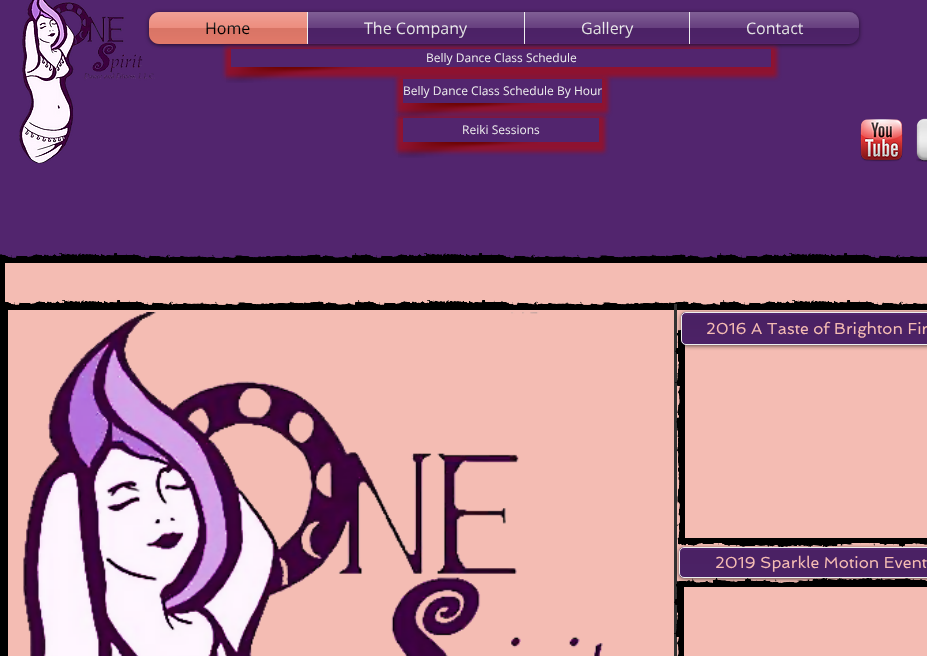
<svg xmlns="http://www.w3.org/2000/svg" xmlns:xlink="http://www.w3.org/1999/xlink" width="927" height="656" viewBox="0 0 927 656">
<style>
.cls-1{font:16px Open Sans;fill:#000000}
.cls-2{font:16px Open Sans;fill:#eeeeee}
.cls-3{font:12px Open Sans;fill:#eeeeee}
.cls-4{font:16px Spinnaker;fill:#f4bcb3}
</style>
<defs>
<clipPath id="clip1"><path d="M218 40H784V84H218ZM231 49H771V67H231Z" clip-rule="evenodd"/></clipPath>
</defs>
<rect width="100%" height="100%" fill="#52256e"/>
<rect fill="#000000" fill-opacity="0.6" filter="blur(2px)" x="149" y="13" width="710" height="32" rx="10"/>
<image xlink:href="image1.png" x="149" y="12" width="710" height="31"/>
<path fill="#ea7e6e" d="M159 12H307V44H159C153.5 44 149 39.5 149 34V22C149 16.5 153.5 12 159 12Z"/>
<rect fill="#52256e" x="308" y="12" width="216" height="32"/>
<rect fill="#eeeeee" x="307" y="12" width="1" height="32"/>
<rect fill="#52256e" x="525" y="12" width="164" height="32"/>
<rect fill="#eeeeee" x="524" y="12" width="1" height="32"/>
<path fill="#52256e" d="M689 12H849C854.5 12 859 16.5 859 22V34C859 39.5 854.5 44 849 44H689Z"/>
<rect fill="#eeeeee" x="689" y="12" width="1" height="32"/>
<image xlink:href="image6.png" x="226" y="67" width="140" height="16"/>
<image xlink:href="image6.png" x="398" y="103" width="140" height="16"/>
<rect fill="#b70707" fill-opacity="0.6" filter="blur(2px)" x="397" y="77" width="211" height="36"/>
<image xlink:href="image6.png" x="398" y="142" width="140" height="16"/>
<rect fill="#b70707" fill-opacity="0.6" filter="blur(2px)" x="397" y="116" width="208" height="36"/>
<rect fill="#52256e" x="403" y="118" width="196" height="24"/>
<image xlink:href="image7.png" x="860" y="119" width="43" height="43"/>
<image xlink:href="image8.png" x="916" y="118" width="11" height="44"/>
<rect fill="#f4bcb3" x="5" y="263" width="922" height="393"/>
<image xlink:href="image9.png" x="0" y="253" width="927" height="10"/>
<rect fill="#000000" x="0" y="263" width="5" height="393"/>
<image xlink:href="image10.png" x="5" y="300" width="922" height="10"/>
<rect fill="#000000" x="5" y="310" width="3" height="346"/>
<rect fill="#333333" x="674" y="304" width="3" height="352"/>
<image xlink:href="image11.png" x="23" y="312" width="580" height="344"/>
<image xlink:href="image13.png" x="675" y="329" width="10" height="211"/>
<rect fill="#000000" fill-opacity="0.6" filter="blur(2px)" x="681" y="313" width="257" height="33" rx="5"/>
<rect fill="#52256e" x="681" y="312" width="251" height="33" rx="5"/>
<image xlink:href="image12.png" x="681" y="315" width="246" height="30"/>
<rect fill="none" stroke="#eeeeee" x="681.5" y="312.5" width="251" height="32" rx="4.5"/>
<rect fill="#000000" fill-opacity="0.6" filter="blur(2px)" x="679" y="548" width="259" height="31" rx="5"/>
<image xlink:href="image14.png" x="678" y="538" width="249" height="9"/>
<rect fill="#52256e" x="679" y="547" width="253" height="31" rx="5"/>
<image xlink:href="image15.png" x="679" y="550" width="248" height="28"/>
<rect fill="none" stroke="#eeeeee" x="679.5" y="547.5" width="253" height="30" rx="4.5"/>
<image xlink:href="image16.png" x="674" y="578" width="253" height="78"/>
<text class="cls-1" x="205" y="34">Home</text>
<image xlink:href="image2.png" x="149" y="12" width="158" height="32"/>
<image xlink:href="image0.png" x="19" y="0" width="136" height="164"/>
<text class="cls-2" x="364" y="34">The Company</text>
<image xlink:href="image3.png" x="308" y="12" width="216" height="31"/>
<text class="cls-2" x="581" y="34">Gallery</text>
<image xlink:href="image4.png" x="525" y="12" width="164" height="31"/>
<text class="cls-2" x="746" y="34">Contact</text>
<image xlink:href="image5.png" x="690" y="12" width="169" height="31"/>
<g clip-path="url(#clip1)">
<rect fill="#b70707" fill-opacity="0.6" filter="blur(2px)" x="225" y="47" width="552" height="30"/>
</g>
<text class="cls-3" x="426" y="62">Belly Dance Class Schedule</text>
<rect fill="#52256e" x="403" y="79" width="199" height="24"/>
<text class="cls-3" x="403" y="95">Belly Dance Class Schedule By Hour</text>
<text class="cls-3" x="462" y="134">Reiki Sessions</text>
<text class="cls-4" x="706" y="334">2016 A Taste of Brighton Fir</text>
<text class="cls-4" x="715" y="568">2019 Sparkle Motion Event</text>
</svg>
